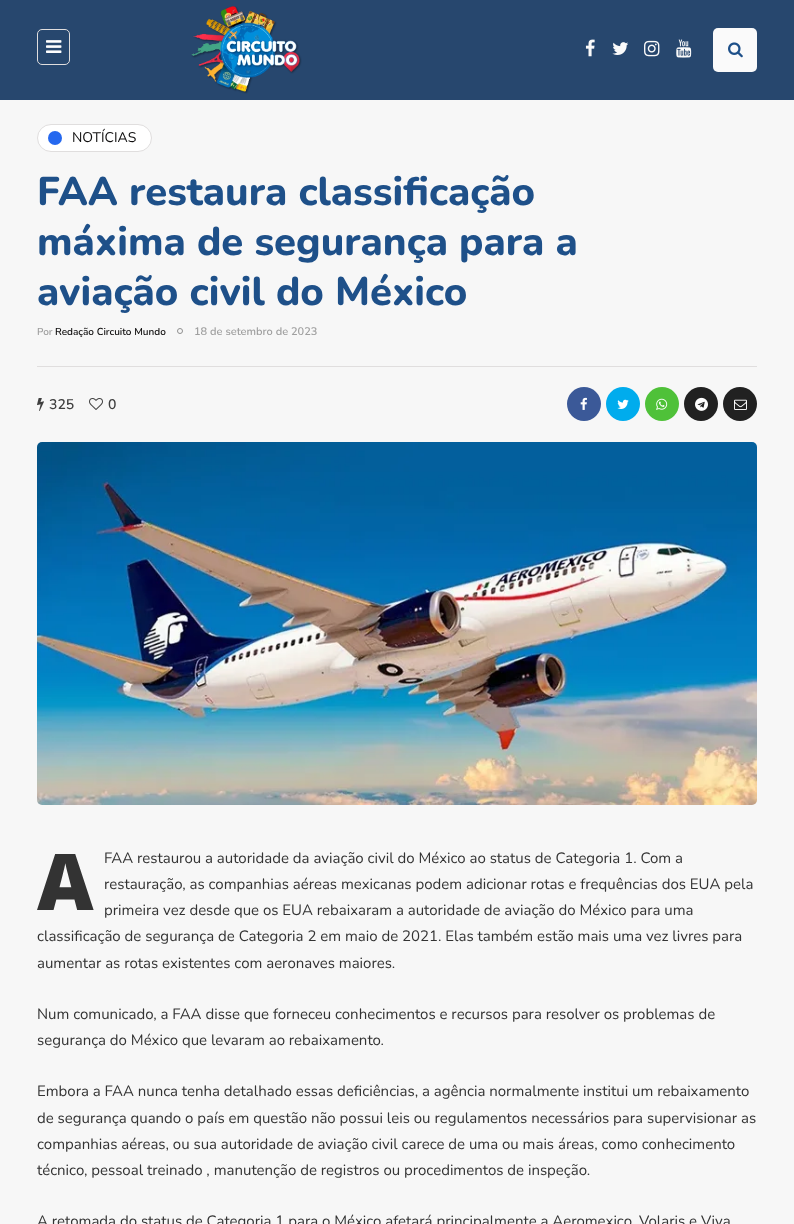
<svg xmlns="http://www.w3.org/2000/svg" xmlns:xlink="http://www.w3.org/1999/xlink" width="794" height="1224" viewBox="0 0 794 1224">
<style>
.cls-1{font:14px Nunito;fill:#0f0e0e}
.cls-2{font:800 40px Nunito;fill:#1e5089}
.cls-3{font:600 10px Nunito;fill:#9f9f9f}
.cls-4{font:600 10px Nunito;fill:#0f0e0e}
.cls-5{font:600 11px Nunito;fill:#9f9f9f}
.cls-6{font:600 14px Nunito;fill:#3f3f3f}
.cls-7{font:900 78px Noto Sans;fill:#333333}
.cls-8{font:15px Nunito;fill:#333333}
</style>
<rect width="100%" height="100%" fill="#f7f7f7"/>
<rect fill="#27476e" x="0" y="0" width="794" height="100"/>
<rect fill="none" stroke="#e0dede" x="37.5" y="29.5" width="32" height="35" rx="4.5"/>
<image xlink:href="image0.png" x="46" y="40" width="16" height="13"/>
<image xlink:href="image1.png" x="191" y="6" width="111" height="88"/>
<image xlink:href="image2.png" x="585" y="39" width="10" height="18"/>
<image xlink:href="image3.png" x="612" y="42" width="17" height="13"/>
<image xlink:href="image4.png" x="644" y="40" width="16" height="17"/>
<image xlink:href="image5.png" x="676" y="39" width="16" height="19"/>
<rect fill="#fafafa" x="713" y="28" width="44" height="44" rx="5"/>
<image xlink:href="image6.png" x="728" y="42" width="15" height="16"/>
<rect fill="#ffffff" stroke="#e0dede" x="37.5" y="124.5" width="114" height="27" rx="13.5"/>
<circle fill="#2568ef" cx="55" cy="138" r="7"/>
<circle fill="none" stroke="#909090" cx="180" cy="331" r="2.5"/>
<rect fill="#e0dede" x="37" y="366" width="720" height="1"/>
<image xlink:href="image7.png" x="37" y="398" width="7" height="13"/>
<image xlink:href="image8.png" x="89" y="398" width="14" height="12"/>
<circle fill="#3b5998" cx="584" cy="404" r="17"/>
<image xlink:href="image9.png" x="580" y="397" width="7" height="13"/>
<circle fill="#00aced" cx="623" cy="404" r="17"/>
<image xlink:href="image10.png" x="617" y="399" width="12" height="10"/>
<circle fill="#4fc139" cx="662" cy="404" r="17"/>
<image xlink:href="image11.png" x="656" y="398" width="12" height="12"/>
<circle fill="#212121" cx="701" cy="404" r="17"/>
<image xlink:href="image12.png" x="695" y="397" width="13" height="14"/>
<circle fill="#212121" cx="740" cy="404" r="17"/>
<image xlink:href="image13.png" x="734" y="399" width="13" height="11"/>
<image xlink:href="image14.png" x="37" y="442" width="720" height="363"/>
<text class="cls-1" x="72" y="142">NOTÍCIAS</text>
<text class="cls-2"><tspan x="37" y="205">FAA restaura classificação</tspan><tspan x="37" y="255">máxima de segurança para a</tspan><tspan x="37" y="305">aviação civil do México</tspan></text>
<text class="cls-3" x="37" y="335">Por</text>
<text class="cls-4" x="55" y="335">Redação Circuito Mundo</text>
<text class="cls-5" x="194" y="335">18 de setembro de 2023</text>
<text class="cls-6" x="49" y="409">325</text>
<text class="cls-6" x="108" y="409">0</text>
<text class="cls-7" x="37" y="910">A</text>
<text class="cls-8"><tspan x="104" y="863">FAA restaurou a autoridade da aviação civil do México ao status de Categoria 1. Com a</tspan><tspan x="104" y="889">restauração, as companhias aéreas mexicanas podem adicionar rotas e frequências dos EUA pela</tspan><tspan x="104" y="915">primeira vez desde que os EUA rebaixaram a autoridade de aviação do México para uma</tspan></text>
<text class="cls-8"><tspan x="37" y="941">classificação de segurança de Categoria 2 em maio de 2021. Elas também estão mais uma vez livres para</tspan><tspan x="37" y="968">aumentar as rotas existentes com aeronaves maiores.</tspan></text>
<text class="cls-8"><tspan x="37" y="1019">Num comunicado, a FAA disse que forneceu conhecimentos e recursos para resolver os problemas de</tspan><tspan x="37" y="1045">segurança do México que levaram ao rebaixamento.</tspan></text>
<text class="cls-8"><tspan x="37" y="1096">Embora a FAA nunca tenha detalhado essas deficiências, a agência normalmente institui um rebaixamento</tspan><tspan x="37" y="1123">de segurança quando o país em questão não possui leis ou regulamentos necessários para supervisionar as</tspan><tspan x="37" y="1149">companhias aéreas, ou sua autoridade de aviação civil carece de uma ou mais áreas, como conhecimento</tspan><tspan x="37" y="1175">técnico, pessoal treinado , manutenção de registros ou procedimentos de inspeção.</tspan></text>
<text class="cls-8" x="37" y="1226">A retomada do status de Categoria 1 para o México afetará principalmente a Aeromexico, Volaris e Viva</text>
</svg>
